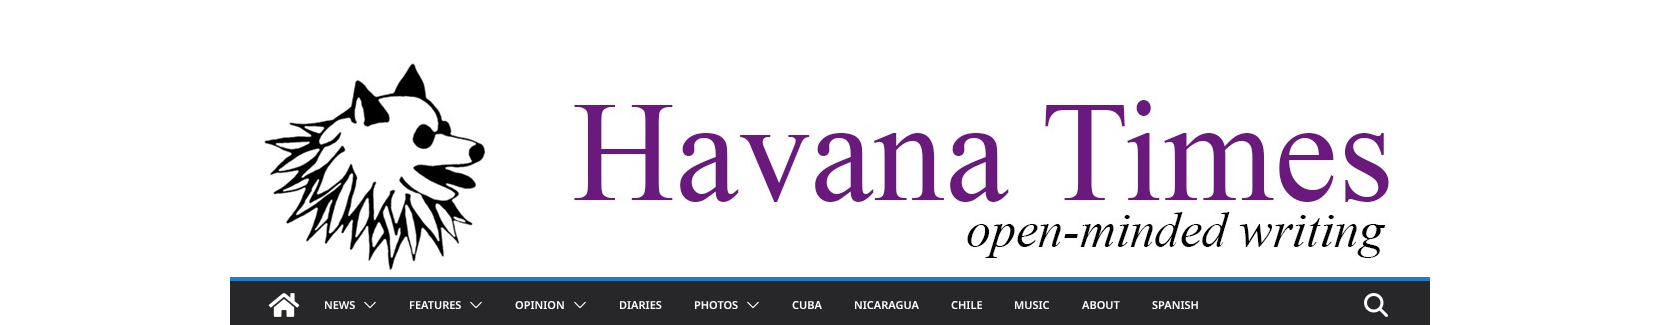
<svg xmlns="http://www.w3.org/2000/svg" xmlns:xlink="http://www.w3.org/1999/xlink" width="1659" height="325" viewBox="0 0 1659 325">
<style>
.cls-1{font:600 11px Noto Sans;fill:#ffffff}
</style>
<rect width="100%" height="100%" fill="#ffffff"/>
<image xlink:href="image0.png" x="263" y="59" width="1129" height="214"/>
<rect fill="#27272a" x="230" y="281" width="1200" height="44"/>
<rect fill="#257bc1" x="230" y="277" width="1200" height="4"/>
<image xlink:href="image1.png" x="268" y="293" width="32" height="24"/>
<image xlink:href="image2.png" x="364" y="301" width="12" height="8"/>
<image xlink:href="image2.png" x="470" y="301" width="12" height="8"/>
<image xlink:href="image2.png" x="574" y="301" width="12" height="8"/>
<image xlink:href="image2.png" x="747" y="301" width="12" height="8"/>
<image xlink:href="image3.png" x="1364" y="293" width="24" height="24"/>
<text class="cls-1" x="324" y="309">NEWS</text>
<text class="cls-1" x="409" y="309">FEATURES</text>
<text class="cls-1" x="515" y="309">OPINION</text>
<text class="cls-1" x="619" y="309">DIARIES</text>
<text class="cls-1" x="694" y="309">PHOTOS</text>
<text class="cls-1" x="792" y="309">CUBA</text>
<text class="cls-1" x="854" y="309">NICARAGUA</text>
<text class="cls-1" x="951" y="309">CHILE</text>
<text class="cls-1" x="1014" y="309">MUSIC</text>
<text class="cls-1" x="1082" y="309">ABOUT</text>
<text class="cls-1" x="1152" y="309">SPANISH</text>
</svg>
